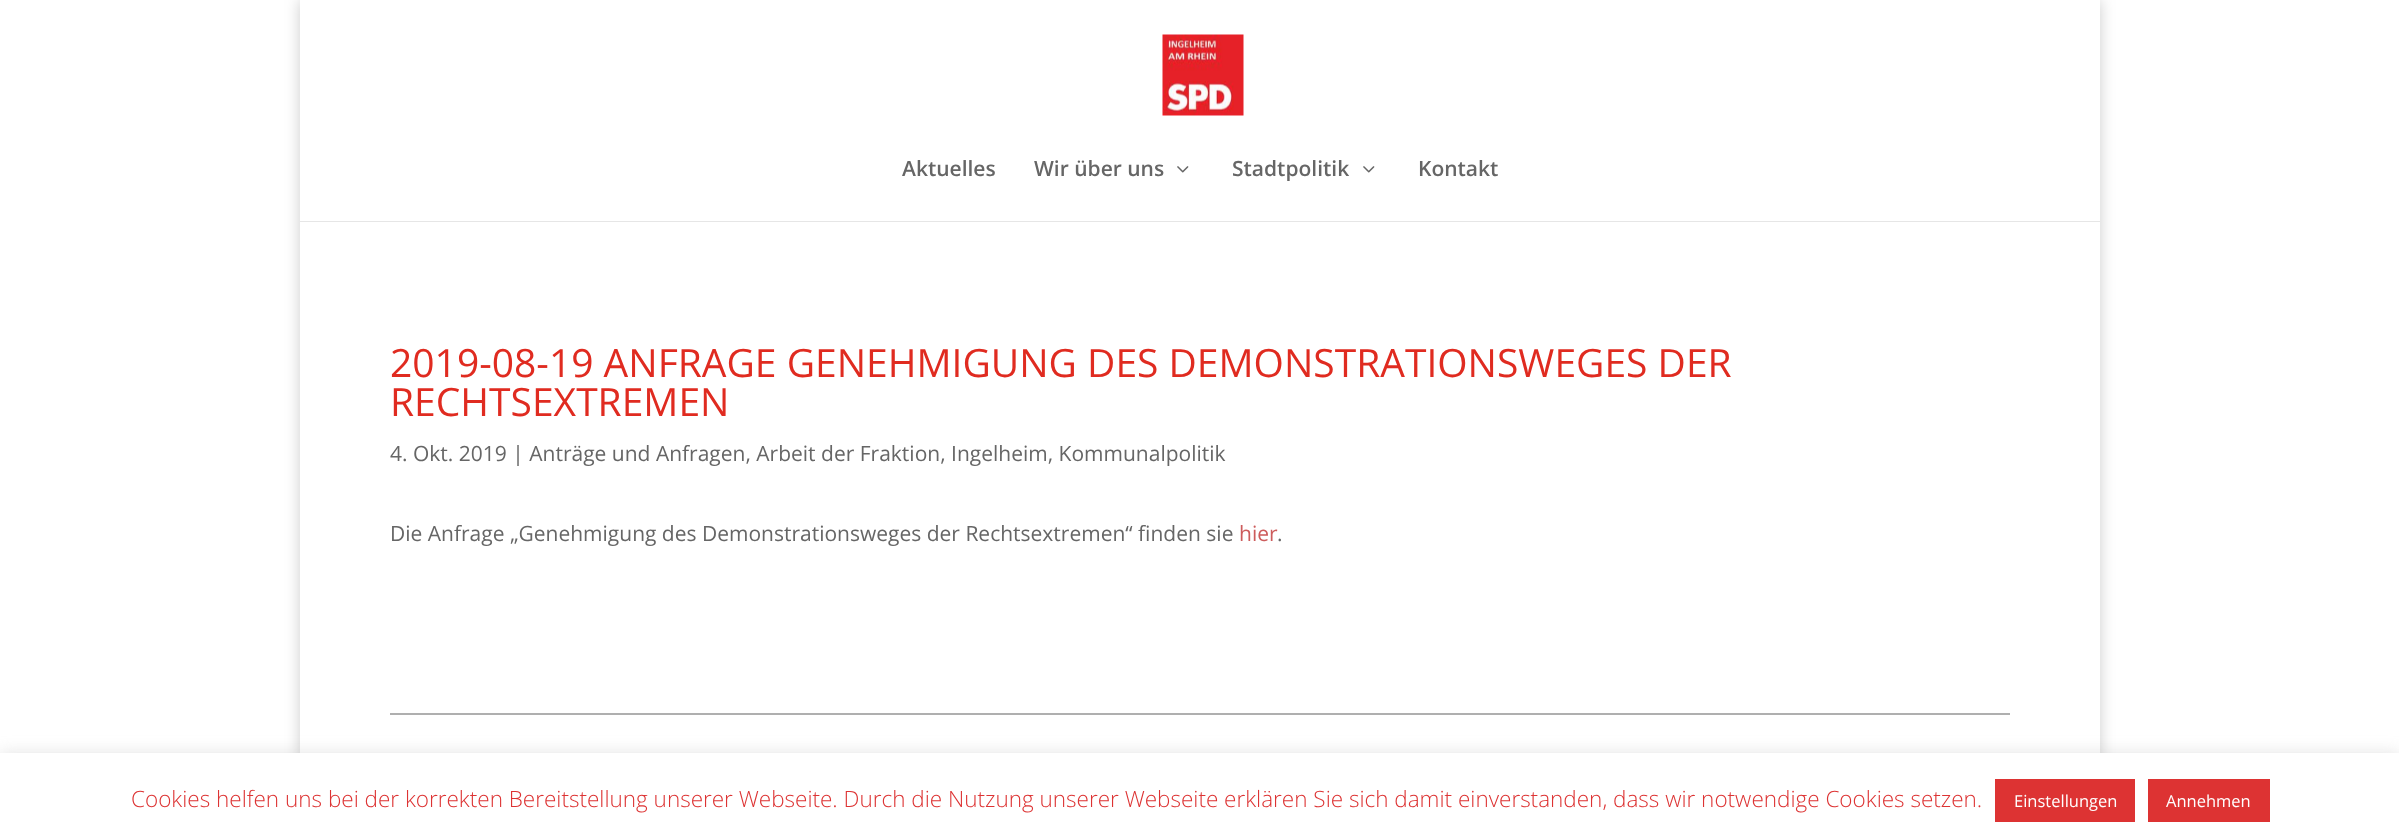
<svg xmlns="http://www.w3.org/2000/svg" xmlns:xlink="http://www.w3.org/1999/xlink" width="2399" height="839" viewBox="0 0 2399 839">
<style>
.cls-1{font:600 21px Open Sans;fill:#666666}
.cls-2{font:39px Open Sans;fill:#e02b20}
.cls-3{font:21px Open Sans;fill:#666666}
.cls-4{font:21px Open Sans;fill:#cd5c5c}
.cls-5{font:300 22.5px Open Sans;fill:#dd3333}
.cls-6{font:16.5px Open Sans;fill:#ffffff}
</style>
<defs>
<clipPath id="clip1"><path d="M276 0H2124V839H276ZM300 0H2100V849H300Z" clip-rule="evenodd"/></clipPath>
</defs>
<rect width="100%" height="100%" fill="#ffffff"/>
<g clip-path="url(#clip1)">
<rect fill="#000000" fill-opacity="0.2" filter="blur(7.5px)" x="300" y="0" width="1800" height="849"/>
</g>
<rect fill="#e6e6e6" x="300" y="221" width="1800" height="1"/>
<image xlink:href="image0.png" x="1162" y="34" width="82" height="82"/>
<image xlink:href="image1.png" x="1177" y="166" width="12" height="7"/>
<image xlink:href="image1.png" x="1363" y="166" width="12" height="7"/>
<rect fill="#afafaf" x="390" y="713" width="1620" height="2"/>
<rect fill="#acabab" fill-opacity="0.3" filter="blur(7.5px)" x="0" y="752" width="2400" height="87"/>
<rect fill="#ffffff" x="0" y="753" width="2399" height="86"/>
<rect fill="#dd3333" x="1995" y="779" width="140" height="43"/>
<rect fill="#dd3333" x="2148" y="779" width="122" height="43"/>
<text class="cls-1" x="902" y="176">Aktuelles</text>
<text class="cls-1" x="1034" y="176">Wir über uns</text>
<text class="cls-1" x="1232" y="176">Stadtpolitik</text>
<text class="cls-1" x="1418" y="176">Kontakt</text>
<text class="cls-2"><tspan x="390" y="377">2019-08-19 ANFRAGE GENEHMIGUNG DES DEMONSTRATIONSWEGES DER</tspan><tspan x="390" y="416">RECHTSEXTREMEN</tspan></text>
<text class="cls-3" x="390" y="461">4. Okt. 2019 | Anträge und Anfragen, Arbeit der Fraktion, Ingelheim, Kommunalpolitik</text>
<text class="cls-3" x="390" y="541">Die Anfrage „Genehmigung des Demonstrationsweges der Rechtsextremen“ finden sie</text>
<text class="cls-4" x="1239" y="541">hier</text>
<text class="cls-3" x="1277" y="541">.</text>
<text class="cls-5" x="131" y="807">Cookies helfen uns bei der korrekten Bereitstellung unserer Webseite. Durch die Nutzung unserer Webseite erklären Sie sich damit einverstanden, dass wir notwendige Cookies setzen.</text>
<text class="cls-6" x="2014" y="807">Einstellungen</text>
<text class="cls-6" x="2166" y="807">Annehmen</text>
</svg>
